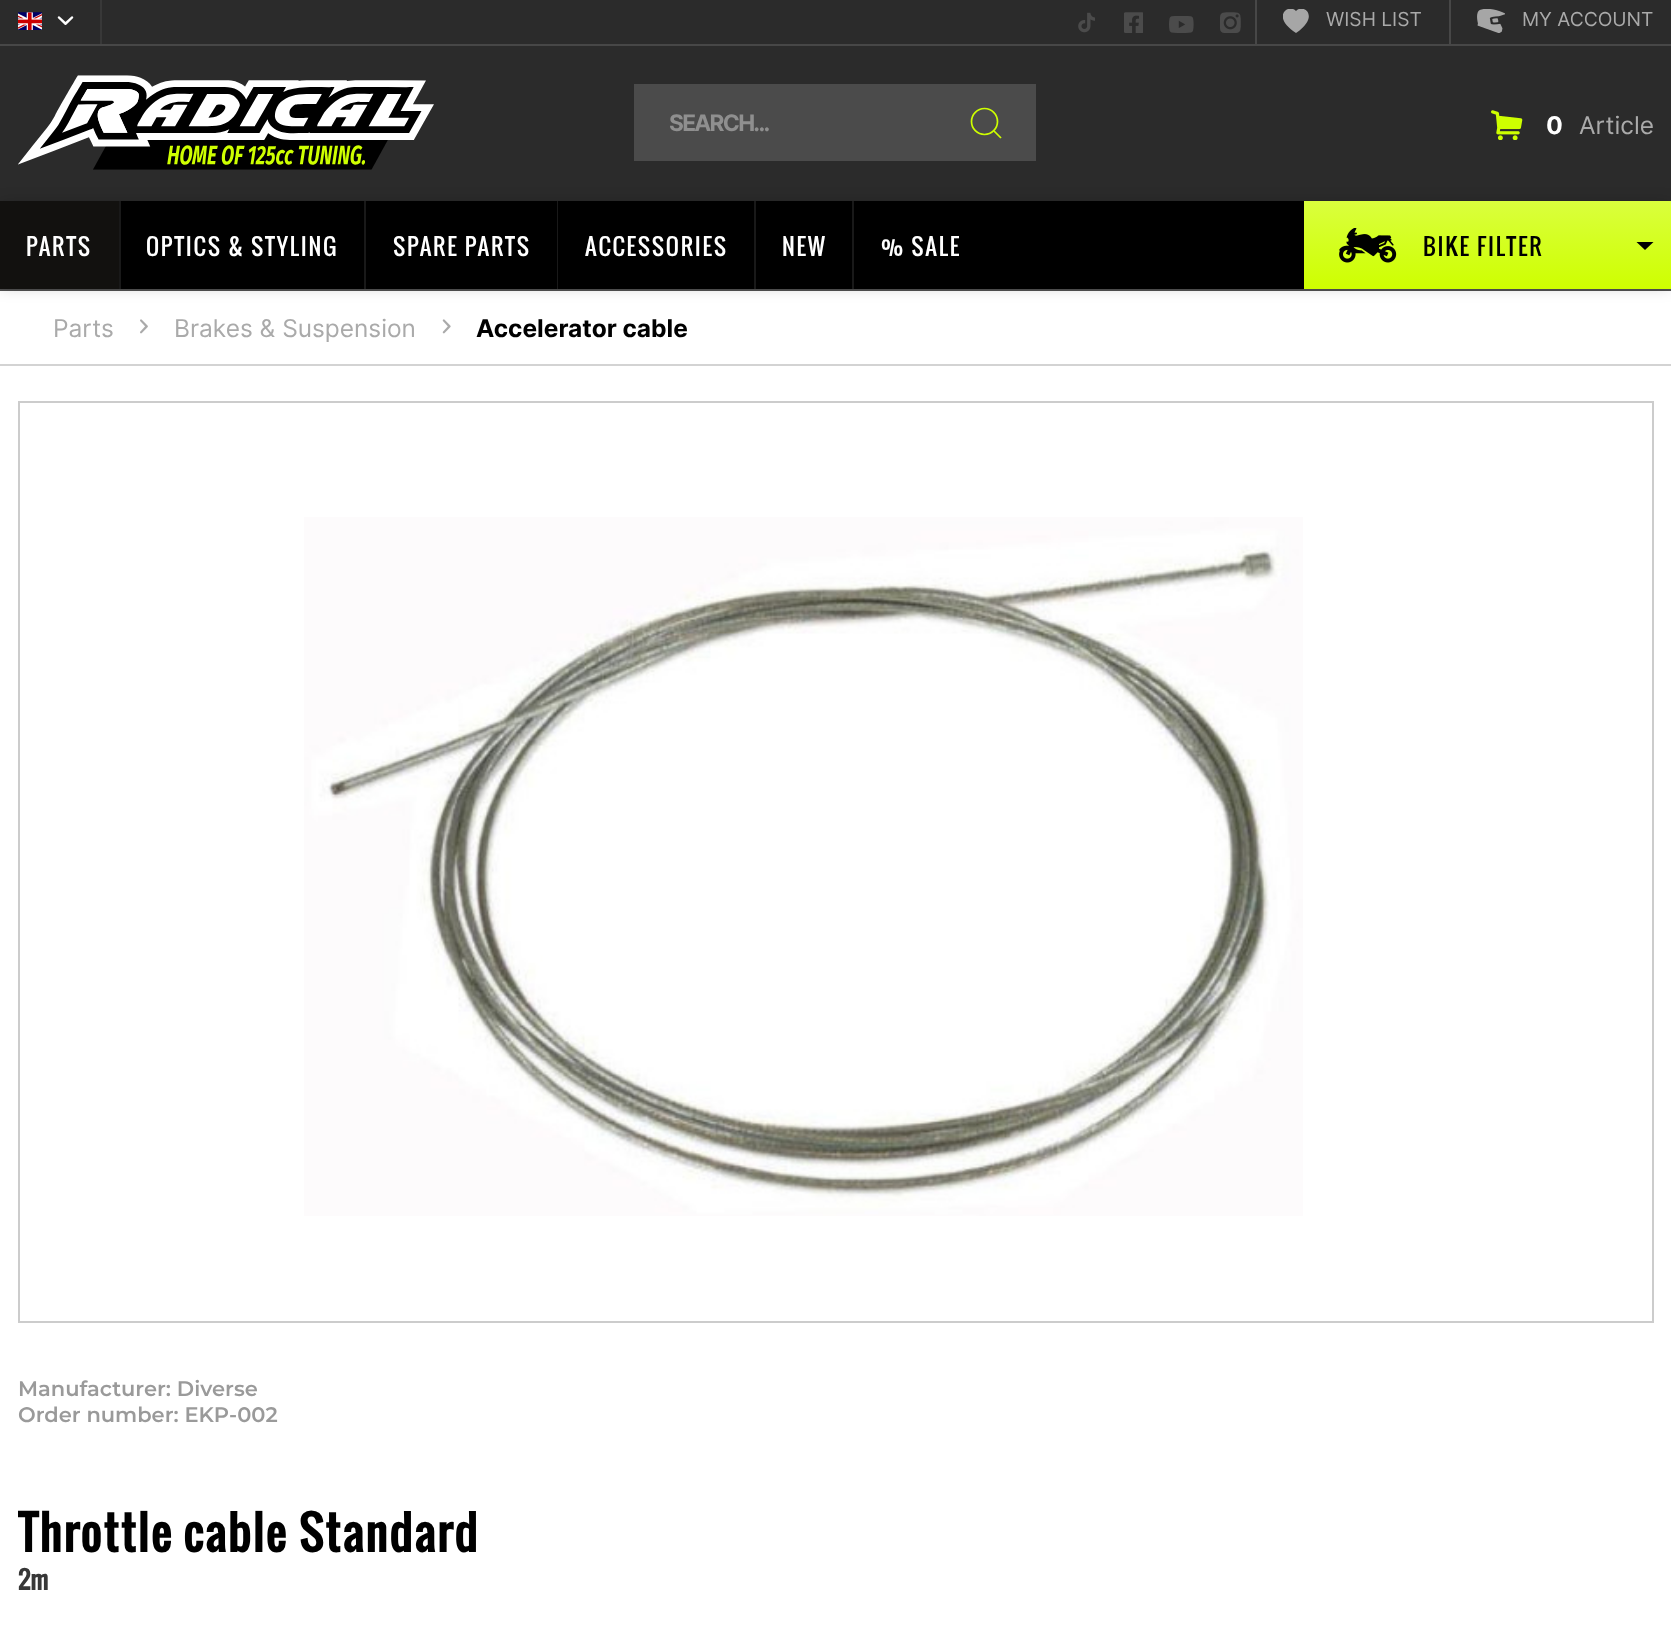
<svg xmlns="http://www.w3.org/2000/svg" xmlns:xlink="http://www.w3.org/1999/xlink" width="1671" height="1625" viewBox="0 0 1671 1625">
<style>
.cls-1{font:19.25px Inter;fill:#aaaaaa}
.cls-2{font:bold 22.75px Inter;letter-spacing:-1.75px;fill:#8f8f8f}
.cls-3{font:bold 24.5px Inter;fill:#ffffff}
.cls-4{font:24.5px Inter;fill:#aaaaaa}
.cls-5{font:22.75px Oswald;letter-spacing:1.75px;fill:#ffffff}
.cls-6{font:22.75px Oswald;letter-spacing:1.75px;fill:#000000}
.cls-7{font:bold 24.5px Inter;fill:#000000}
.cls-8{font:600 21px Montserrat;fill:#9a9a9a}
.cls-9{font:bold 45.5px Oswald;letter-spacing:1.75px;fill:#000000}
.cls-10{font:bold 24.5px Oswald;fill:#373737}
</style>
<defs>
<clipPath id="clip1"><rect x="1283" y="9" width="26" height="24"/></clipPath>
<clipPath id="clip2"><path d="M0 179H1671V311H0ZM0 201H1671V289H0Z" clip-rule="evenodd"/></clipPath>
<linearGradient id="g1" gradientUnits="userSpaceOnUse" x1="1488" y1="201" x2="1488" y2="289"><stop offset="0" stop-color="#daff3d"/><stop offset="1" stop-color="#ceff00"/></linearGradient>
<clipPath id="clip3"><rect x="1636" y="242" width="18" height="8"/></clipPath>
<clipPath id="clip4"><rect x="18" y="1507" width="1636" height="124"/></clipPath>
</defs>
<rect width="100%" height="100%" fill="#2b2b2b"/>
<rect fill="#474747" x="0" y="44" width="1671" height="2"/>
<rect fill="#383838" x="100" y="0" width="2" height="44"/>
<image xlink:href="image0.png" x="18" y="12" width="24" height="18"/>
<image xlink:href="image1.png" x="57" y="16" width="17" height="9"/>
<image xlink:href="image2.png" x="1078" y="12" width="17" height="21"/>
<image xlink:href="image3.png" x="1124" y="12" width="19" height="21"/>
<image xlink:href="image4.png" x="1169" y="16" width="25" height="17"/>
<image xlink:href="image5.png" x="1220" y="12" width="21" height="21"/>
<rect fill="#474747" x="1449" y="0" width="2" height="44"/>
<rect fill="#474747" x="1255" y="0" width="2" height="44"/>
<g clip-path="url(#clip1)">
<path fill="#a6a6a6" d="M1296 11C1303 3 1321 16 1296 33C1270 16 1289 3 1296 11Z"/>
</g>
<image xlink:href="image6.png" x="1477" y="9" width="28" height="24"/>
<image xlink:href="image7.png" x="18" y="75" width="416" height="95"/>
<rect fill="#4b4b4b" x="634" y="84" width="402" height="77"/>
<circle fill="none" stroke="#ceff00" stroke-width="1.7" cx="984.5" cy="121.5" r="13"/>
<path fill="none" stroke="#ceff00" stroke-width="1.7" d="M1001 138L994 131"/>
<image xlink:href="image8.png" x="1491" y="110" width="32" height="30"/>
<rect fill="#000000" x="121" y="201" width="1183" height="88"/>
<rect fill="#515151" x="0" y="289" width="1671" height="2"/>
<rect fill="#ffffff" x="0" y="291" width="1671" height="73"/>
<g clip-path="url(#clip2)">
<rect fill="#000000" fill-opacity="0.15" filter="blur(7px)" x="0" y="201" width="1671" height="88"/>
</g>
<rect fill="#191919" x="119" y="201" width="2" height="88"/>
<rect fill="#12110f" x="0" y="201" width="119" height="88"/>
<rect fill="#191919" x="364" y="201" width="2" height="88"/>
<rect fill="#191919" x="557" y="201" width="1" height="88"/>
<rect fill="#191919" x="754" y="201" width="2" height="88"/>
<rect fill="#191919" x="852" y="201" width="2" height="88"/>
<rect fill="url(#g1)" x="1304" y="201" width="367" height="88"/>
<image xlink:href="image9.png" x="1339" y="228" width="58" height="35"/>
<g clip-path="url(#clip3)">
<path fill="#000000" d="M1645 250L1636 241.5H1654Z"/>
</g>
<image xlink:href="image10.png" x="140" y="319" width="8" height="15"/>
<image xlink:href="image11.png" x="442" y="319" width="9" height="15"/>
<rect fill="#ffffff" x="0" y="366" width="1671" height="1259"/>
<rect fill="#d3d3d3" x="0" y="364" width="1671" height="2"/>
<rect fill="none" stroke="#cccccc" stroke-width="2" x="19" y="402" width="1634" height="920"/>
<image xlink:href="image12.png" x="304" y="517" width="999" height="699"/>
<text class="cls-1" x="1326" y="26">WISH LIST</text>
<text class="cls-1" x="1522" y="26">MY ACCOUNT</text>
<text class="cls-2" x="669" y="131">SEARCH...</text>
<text class="cls-3" x="1546" y="134">0</text>
<text class="cls-4" x="1579" y="134">Article</text>
<text class="cls-5" x="26" y="256">PARTS</text>
<text class="cls-5" x="146" y="256">OPTICS &amp; STYLING</text>
<text class="cls-5" x="393" y="256">SPARE PARTS</text>
<text class="cls-5" x="585" y="256">ACCESSORIES</text>
<text class="cls-5" x="782" y="256">NEW</text>
<text class="cls-5" x="881" y="256">% SALE</text>
<text class="cls-6" x="1423" y="256">BIKE FILTER</text>
<text class="cls-4" x="53" y="337">Parts</text>
<text class="cls-4" x="174" y="337">Brakes &amp; Suspension</text>
<text class="cls-7" x="476" y="337">Accelerator cable</text>
<text class="cls-8"><tspan x="18" y="1396">Manufacturer: Diverse</tspan><tspan x="18" y="1422">Order number: EKP-002</tspan></text>
<g clip-path="url(#clip4)">
<text class="cls-9" x="18" y="1552">Throttle cable Standard</text>
</g>
<text class="cls-10" x="18" y="1590">2m</text>
</svg>
